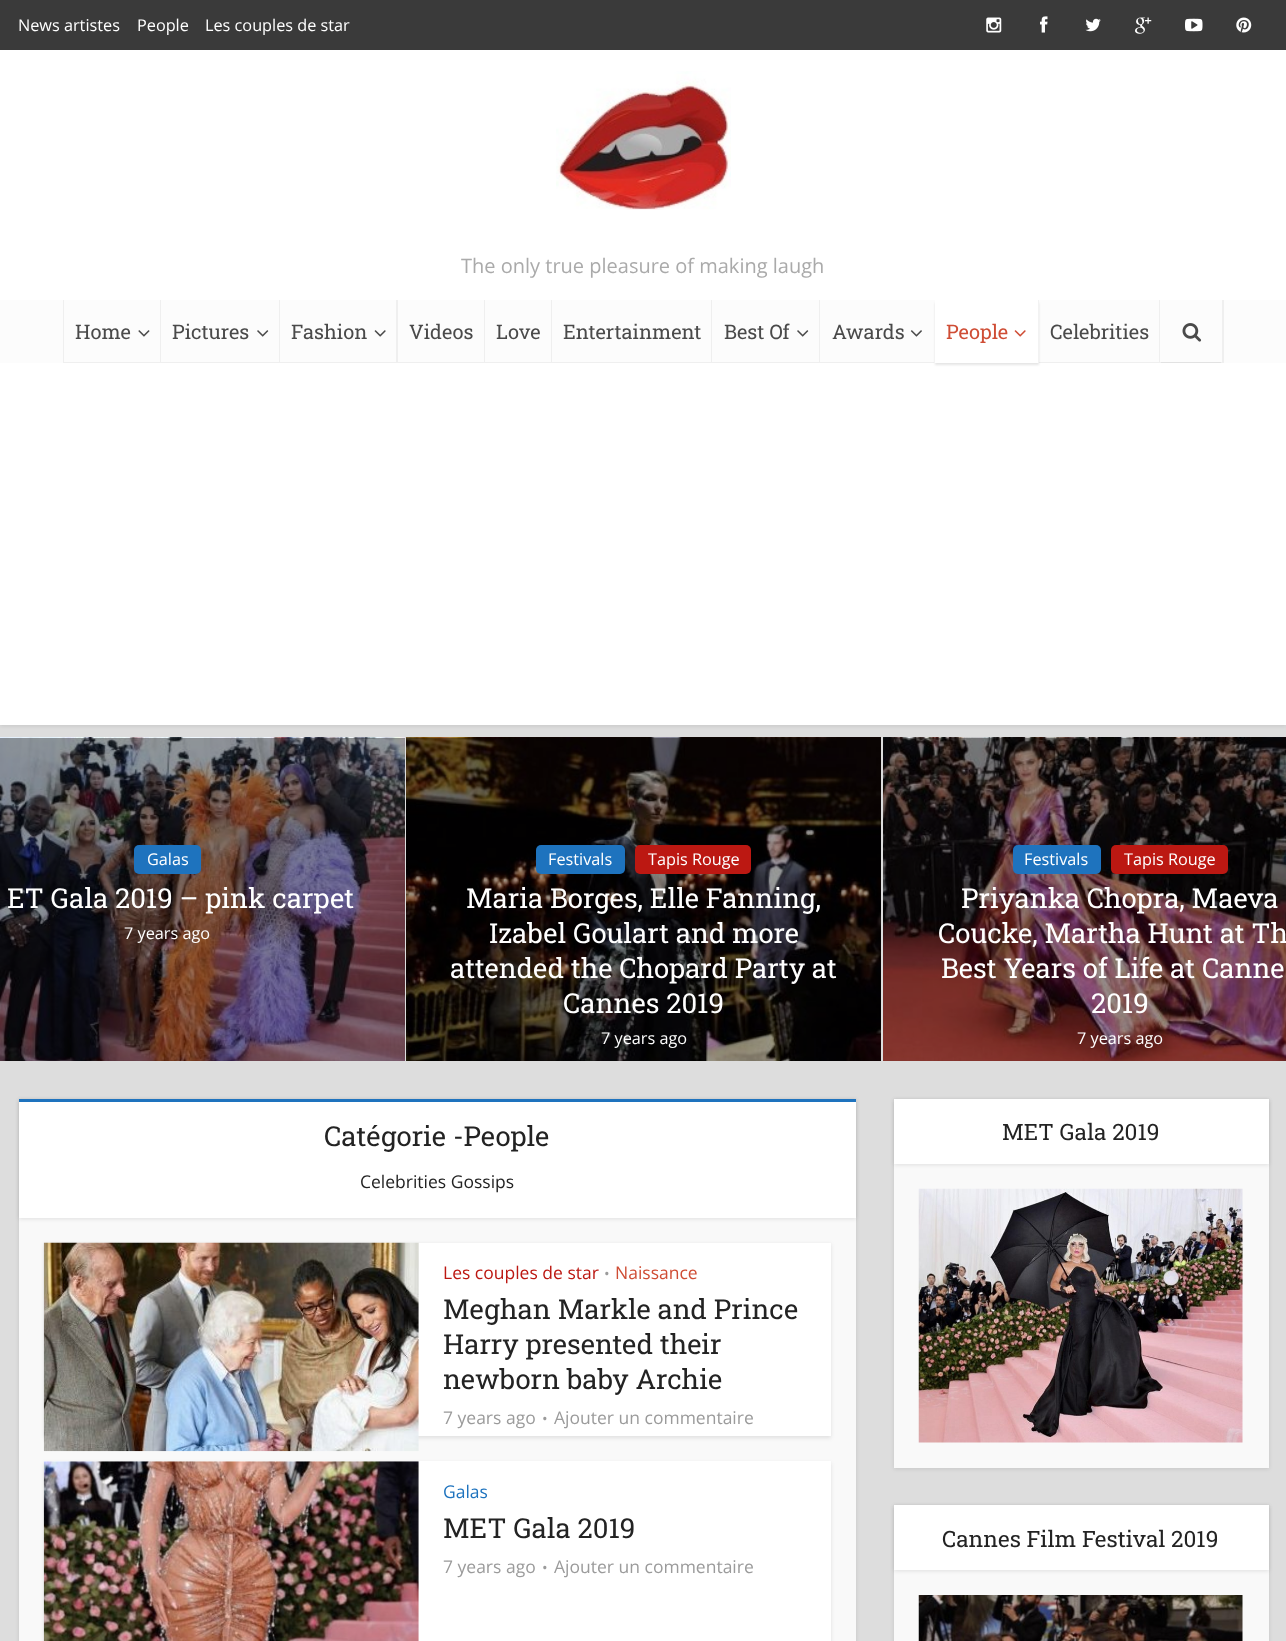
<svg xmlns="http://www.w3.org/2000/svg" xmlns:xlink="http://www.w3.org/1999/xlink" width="1286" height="1641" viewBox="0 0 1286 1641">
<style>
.cls-1{font:16.25px Open Sans;fill:#ffffff}
.cls-2{font:20px Open Sans;fill:#aaaaaa}
.cls-3{font:20px Roboto Slab;fill:#4a4a4a}
.cls-4{font:20px Roboto Slab;fill:#cf4d35}
.cls-5{font:27.5px Roboto Slab;fill:#ffffff}
.cls-6{font:27.5px Roboto Slab;fill:#232323}
.cls-7{font:17.5px Open Sans;fill:#232323}
.cls-8{font:17.5px Open Sans;fill:#bc1812}
.cls-9{font:15px Open Sans;fill:#9b9b9b}
.cls-10{font:17.5px Open Sans;fill:#cf4d35}
.cls-11{font:17.5px Open Sans;fill:#9b9b9b}
.cls-12{font:17.5px Open Sans;fill:#1e73be}
.cls-13{font:22.5px Roboto Slab;fill:#232323}
</style>
<rect width="100%" height="100%" fill="#dddddd"/>
<rect fill="#000000" fill-opacity="0.1" filter="blur(2px)" x="0" y="1" width="1286" height="725"/>
<rect fill="#ffffff" x="0" y="50" width="1286" height="675"/>
<rect fill="#3a3a3a" x="0" y="0" width="1286" height="50"/>
<image xlink:href="image0.png" x="986" y="17" width="16" height="16"/>
<image xlink:href="image1.png" x="1040" y="16" width="8" height="17"/>
<image xlink:href="image2.png" x="1085" y="18" width="16" height="14"/>
<image xlink:href="image3.png" x="1135" y="17" width="17" height="17"/>
<image xlink:href="image4.png" x="1185" y="18" width="18" height="14"/>
<image xlink:href="image5.png" x="1236" y="17" width="16" height="16"/>
<image xlink:href="image6.png" x="556" y="71" width="175" height="139"/>
<rect fill="#fcfcfc" x="0" y="300" width="1286" height="63"/>
<path fill="#efefef" d="M63 300V363H160V362H64V300Z"/>
<image xlink:href="image7.png" x="138" y="330" width="12" height="7"/>
<path fill="#efefef" d="M160 300V363H279V362H161V300Z"/>
<image xlink:href="image8.png" x="257" y="330" width="12" height="7"/>
<path fill="#efefef" d="M279 300V363H396V362H280V300Z"/>
<image xlink:href="image9.png" x="374" y="330" width="12" height="7"/>
<path fill="#efefef" d="M396 300V363H484V362H398V300Z"/>
<path fill="#efefef" d="M484 300V363H551V362H485V300Z"/>
<path fill="#efefef" d="M551 300V363H711V362H552V300Z"/>
<path fill="#efefef" d="M711 300V363H819V362H712V300Z"/>
<image xlink:href="image8.png" x="797" y="330" width="12" height="7"/>
<path fill="#efefef" d="M819 300V363H934V362H820V300Z"/>
<image xlink:href="image10.png" x="910" y="330" width="12" height="7"/>
<rect fill="#000000" fill-opacity="0.1" filter="blur(1px)" x="935" y="303" width="104" height="62"/>
<rect fill="#ffffff" x="935" y="300" width="104" height="63"/>
<image xlink:href="image11.png" x="1014" y="330" width="12" height="7"/>
<path fill="#000000" fill-opacity="0.05" d="M1038 300V363H1159V362H1039V300Z"/>
<path fill="#efefef" d="M1161 362V363H1224V300H1222V362Z"/>
<path fill="#000000" fill-opacity="0.05" d="M1159 300V363H1221V362H1160V300Z"/>
<image xlink:href="image12.png" x="1182" y="323" width="20" height="19"/>
<image xlink:href="image13.png" x="0" y="737" width="405" height="324"/>
<rect fill="#1e73be" x="134" y="845" width="67" height="29" rx="5"/>
<image xlink:href="image14.png" x="406" y="737" width="475" height="324"/>
<rect fill="#1e73be" x="536" y="845" width="89" height="29" rx="5"/>
<rect fill="#bc1812" x="635" y="845" width="116" height="29" rx="5"/>
<image xlink:href="image15.png" x="883" y="737" width="403" height="324"/>
<rect fill="#1e73be" x="1013" y="845" width="88" height="29" rx="5"/>
<rect fill="#bc1812" x="1111" y="845" width="117" height="29" rx="5"/>
<rect fill="#000000" fill-opacity="0.1" filter="blur(2px)" x="19" y="1100" width="837" height="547"/>
<rect fill="#f9f9f9" x="19" y="1218" width="837" height="423"/>
<rect fill="#000000" fill-opacity="0.1" filter="blur(2px)" x="19" y="1100" width="837" height="119"/>
<rect fill="#ffffff" x="19" y="1102" width="837" height="116"/>
<rect fill="#1e73be" x="19" y="1099" width="837" height="3"/>
<rect fill="#000000" fill-opacity="0.1" filter="blur(2px)" x="44" y="1244" width="787" height="194"/>
<rect fill="#ffffff" x="418" y="1243" width="413" height="193"/>
<image xlink:href="image16.png" x="43" y="1242" width="376" height="210"/>
<rect fill="#000000" fill-opacity="0.1" filter="blur(2px)" x="44" y="1463" width="787" height="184"/>
<rect fill="#ffffff" x="44" y="1461" width="787" height="180"/>
<image xlink:href="image17.png" x="43" y="1461" width="376" height="180"/>
<rect fill="#000000" fill-opacity="0.1" filter="blur(2px)" x="894" y="1100" width="375" height="369"/>
<rect fill="#f9f9f9" x="894" y="1164" width="375" height="304"/>
<rect fill="#000000" fill-opacity="0.1" filter="blur(2px)" x="894" y="1100" width="375" height="65"/>
<rect fill="#ffffff" x="894" y="1099" width="375" height="65"/>
<image xlink:href="image18.png" x="918" y="1188" width="325" height="255"/>
<rect fill="#000000" fill-opacity="0.1" filter="blur(2px)" x="894" y="1506" width="375" height="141"/>
<rect fill="#f9f9f9" x="894" y="1570" width="375" height="71"/>
<rect fill="#000000" fill-opacity="0.1" filter="blur(2px)" x="894" y="1506" width="375" height="65"/>
<rect fill="#ffffff" x="894" y="1505" width="375" height="65"/>
<image xlink:href="image19.png" x="918" y="1595" width="325" height="46"/>
<text class="cls-1" x="18" y="31">News artistes</text>
<text class="cls-1" x="137" y="31">People</text>
<text class="cls-1" x="205" y="31">Les couples de star</text>
<text class="cls-2" x="461" y="273">The only true pleasure of making laugh</text>
<text class="cls-3" x="75" y="339">Home</text>
<text class="cls-3" x="172" y="339">Pictures</text>
<text class="cls-3" x="291" y="339">Fashion</text>
<text class="cls-3" x="409" y="339">Videos</text>
<text class="cls-3" x="496" y="339">Love</text>
<text class="cls-3" x="563" y="339">Entertainment</text>
<text class="cls-3" x="724" y="339">Best Of</text>
<text class="cls-3" x="832" y="339">Awards</text>
<text class="cls-4" x="946" y="339">People</text>
<text class="cls-3" x="1050" y="339">Celebrities</text>
<text class="cls-1" x="147" y="865">Galas</text>
<text class="cls-5" x="7" y="908">ET Gala 2019 – pink carpet</text>
<text class="cls-1" x="124" y="939">7 years ago</text>
<text class="cls-1" x="548" y="865">Festivals</text>
<text class="cls-1" x="648" y="865">Tapis Rouge</text>
<text class="cls-5" x="466" y="908">Maria Borges, Elle Fanning,</text>
<text class="cls-5" x="489" y="943">Izabel Goulart and more</text>
<text class="cls-5" x="450" y="978">attended the Chopard Party at</text>
<text class="cls-5" x="563" y="1013">Cannes 2019</text>
<text class="cls-1" x="601" y="1044">7 years ago</text>
<text class="cls-1" x="1024" y="865">Festivals</text>
<text class="cls-1" x="1124" y="865">Tapis Rouge</text>
<text class="cls-5" x="961" y="908">Priyanka Chopra, Maeva</text>
<text class="cls-5" x="938" y="943">Coucke, Martha Hunt at Th</text>
<text class="cls-5" x="941" y="978">Best Years of Life at Canne</text>
<text class="cls-5" x="1091" y="1013">2019</text>
<text class="cls-1" x="1077" y="1044">7 years ago</text>
<text class="cls-6" x="324" y="1146">Catégorie -People</text>
<text class="cls-7" x="360" y="1188">Celebrities Gossips</text>
<text class="cls-8" x="443" y="1279">Les couples de star</text>
<text class="cls-9" x="604" y="1279">•</text>
<text class="cls-10" x="615" y="1279">Naissance</text>
<text class="cls-6"><tspan x="443" y="1319">Meghan Markle and Prince</tspan><tspan x="443" y="1354">Harry presented their</tspan><tspan x="443" y="1389">newborn baby Archie</tspan></text>
<text class="cls-11" x="443" y="1424">7 years ago</text>
<text class="cls-9" x="542" y="1424">•</text>
<text class="cls-11" x="554" y="1424">Ajouter un commentaire</text>
<text class="cls-12" x="443" y="1498">Galas</text>
<text class="cls-6" x="443" y="1538">MET Gala 2019</text>
<text class="cls-11" x="443" y="1573">7 years ago</text>
<text class="cls-9" x="542" y="1573">•</text>
<text class="cls-11" x="554" y="1573">Ajouter un commentaire</text>
<text class="cls-13" x="1002" y="1140">MET Gala 2019</text>
<text class="cls-13" x="942" y="1547">Cannes Film Festival 2019</text>
</svg>
